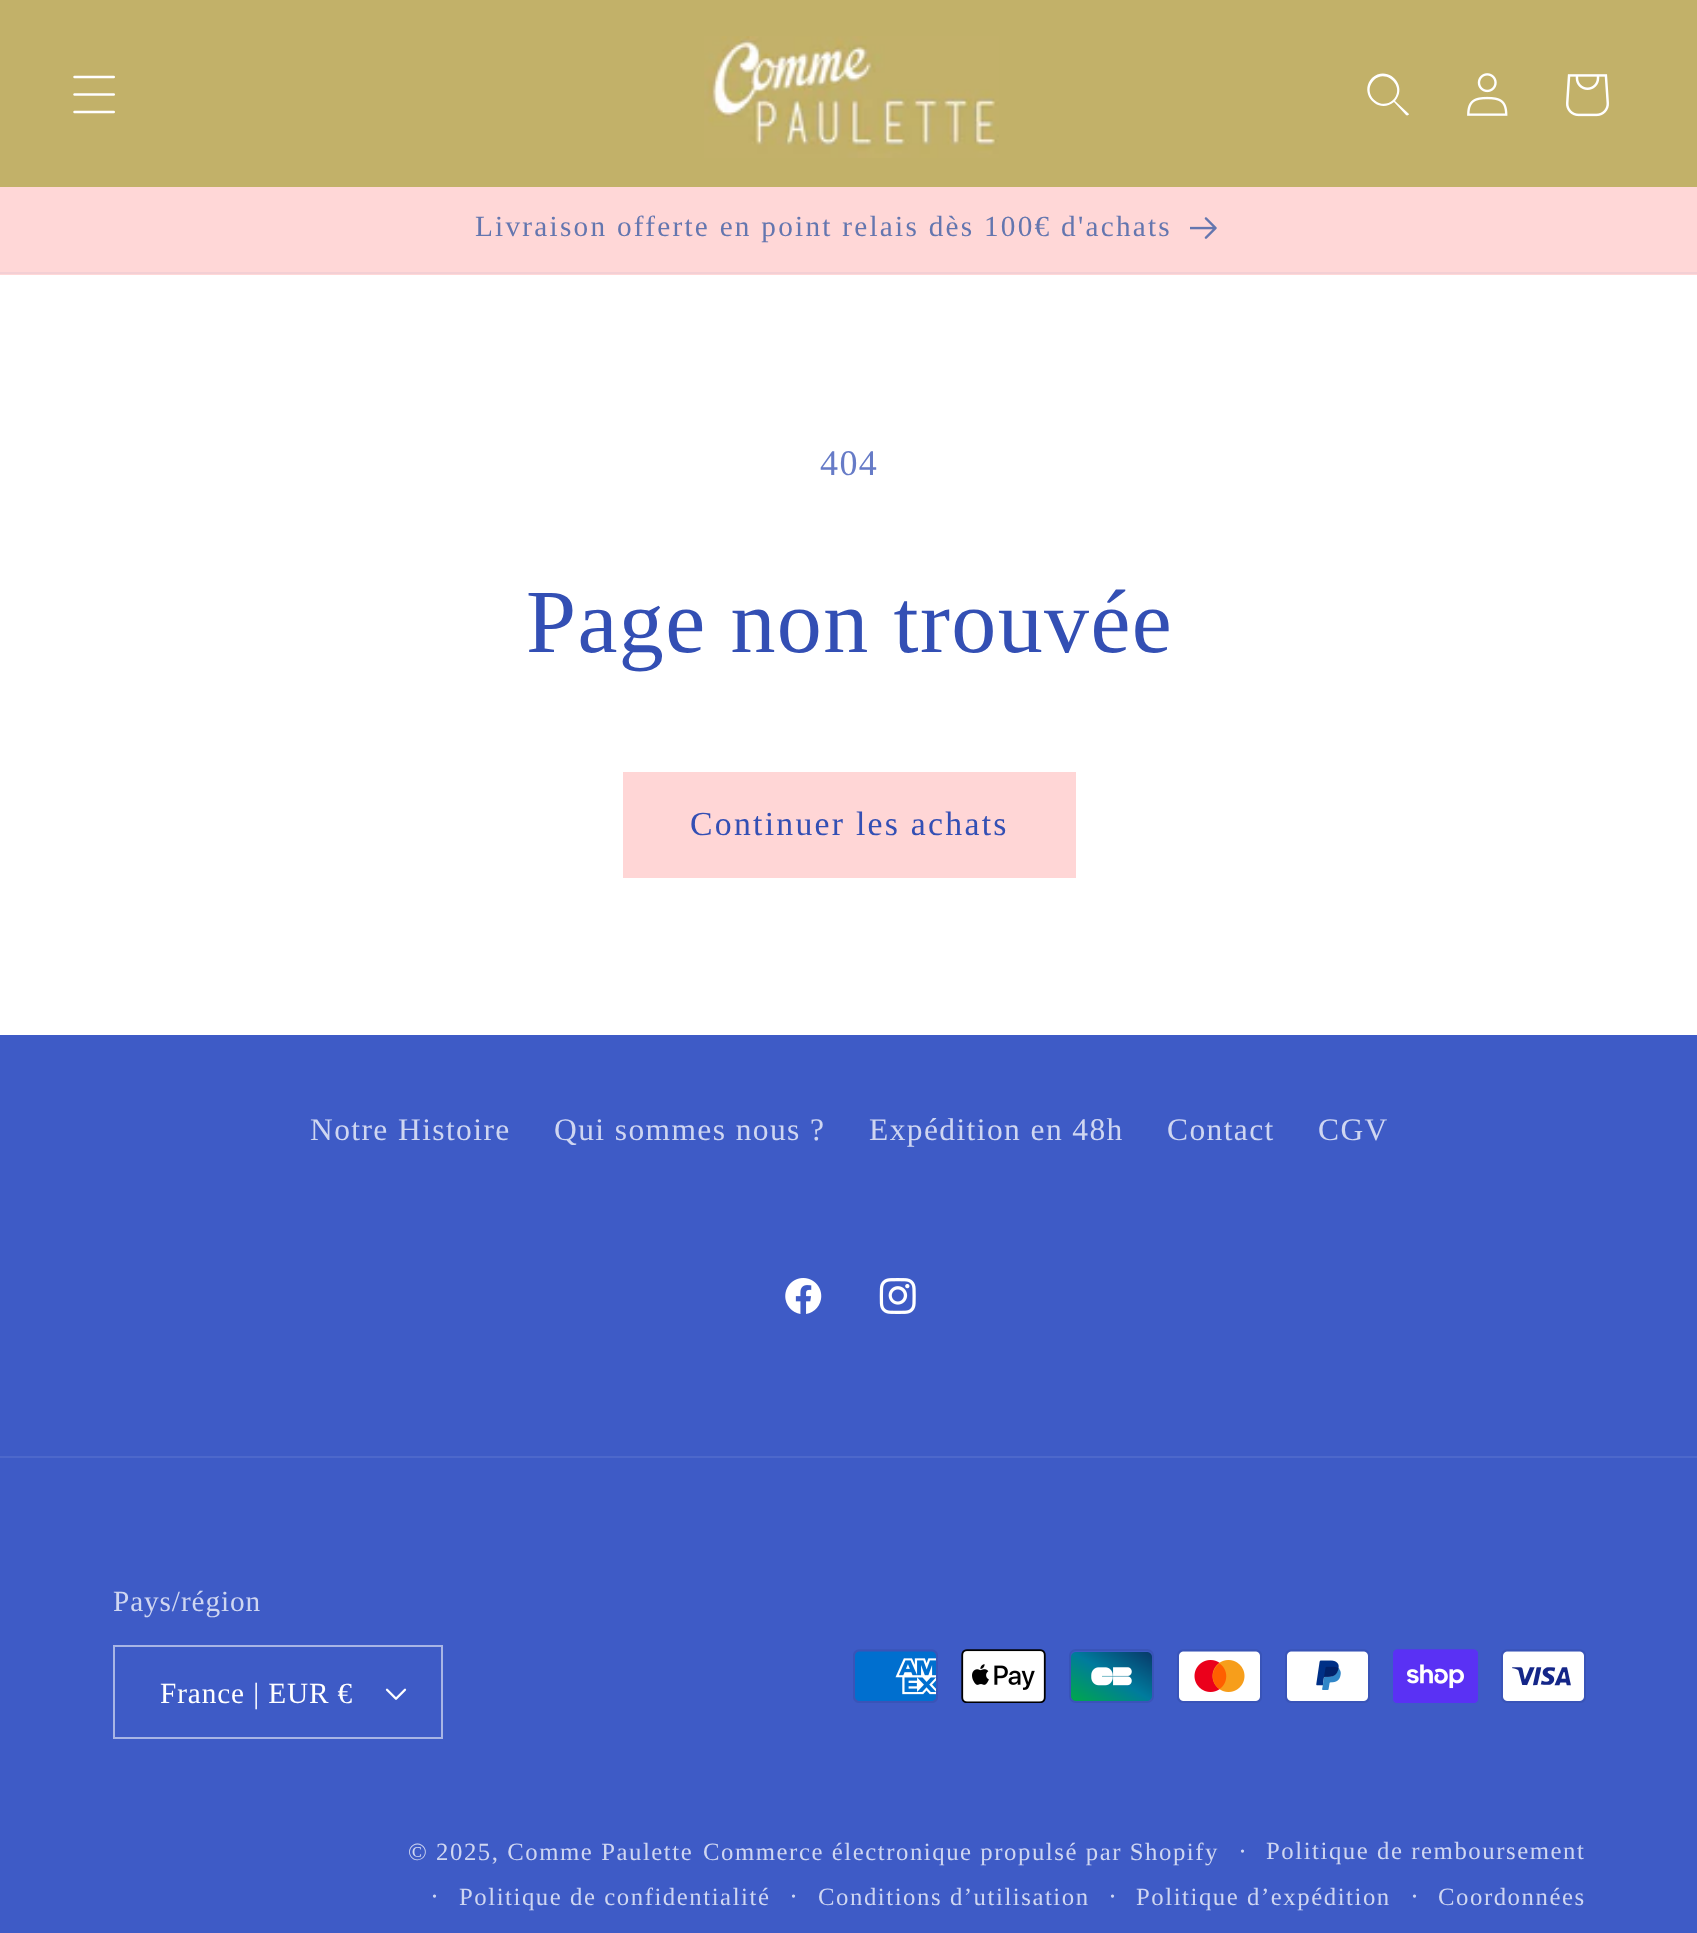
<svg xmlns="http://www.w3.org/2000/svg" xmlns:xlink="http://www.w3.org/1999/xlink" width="1697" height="1933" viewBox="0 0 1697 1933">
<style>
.cls-1{font:29.25px Liberation Serif;letter-spacing:2.25px;fill:#6476af}
.cls-2{font:36px Liberation Serif;letter-spacing:1.4px;fill:#667bc7}
.cls-3{font:90px Liberation Serif;letter-spacing:1.4px;fill:#334fb4}
.cls-4{font:33.75px Liberation Serif;letter-spacing:2.25px;fill:#334fb4}
.cls-5{font:31.5px Liberation Serif;letter-spacing:1.4px;fill:#cfd6f1}
.cls-6{font:29.25px Liberation Serif;letter-spacing:0.9px;fill:#cfd6f1}
.cls-7{font:29.25px Liberation Serif;letter-spacing:0.9px;fill:#ffffff}
.cls-8{font:27px Liberation Serif;letter-spacing:1.55px;fill:#cfd6f1}
.cls-9{font:24.75px Liberation Serif;letter-spacing:1.55px;fill:#cfd6f1}
</style>
<rect width="100%" height="100%" fill="#ffffff"/>
<rect fill="#c2b169" x="0" y="0" width="1697" height="187"/>
<image xlink:href="image0.png" x="73" y="75" width="42" height="39"/>
<image xlink:href="image1.png" x="704" y="36" width="295" height="122"/>
<path fill="#ffffff" fill-rule="evenodd" d="M1393 100C1380 112 1361 93 1374 80C1386 68 1406 87 1393 100M1394 102C1378 115 1358 93 1372 78C1387 64 1409 85 1395 101L1409 114C1409 115 1407 116 1406 115Z"/>
<image xlink:href="image2.png" x="1467" y="73" width="41" height="43"/>
<image xlink:href="image3.png" x="1566" y="74" width="43" height="43"/>
<rect fill="#ffd7d7" x="0" y="187" width="1697" height="88"/>
<rect fill="#f3cfd4" x="0" y="272" width="1697" height="2"/>
<image xlink:href="image4.png" x="1190" y="217" width="27" height="22"/>
<rect fill="#ffd6d6" x="623" y="772" width="453" height="106"/>
<rect fill="#3e5bc6" x="0" y="1035" width="1697" height="898"/>
<image xlink:href="image5.png" x="785" y="1278" width="37" height="36"/>
<image xlink:href="image6.png" x="879" y="1278" width="37" height="36"/>
<rect fill="#4d68cb" x="0" y="1456" width="1697" height="2"/>
<image xlink:href="image7.png" x="385" y="1688" width="22" height="12"/>
<rect fill="none" stroke="#a8b5e5" stroke-width="2" x="114" y="1646" width="328" height="92"/>
<image xlink:href="image8.png" x="853" y="1649" width="85" height="54"/>
<image xlink:href="image9.png" x="961" y="1649" width="85" height="54"/>
<image xlink:href="image10.png" x="1069" y="1649" width="85" height="54"/>
<image xlink:href="image11.png" x="1177" y="1649" width="85" height="54"/>
<image xlink:href="image12.png" x="1285" y="1649" width="85" height="54"/>
<image xlink:href="image13.png" x="1393" y="1649" width="85" height="54"/>
<image xlink:href="image14.png" x="1501" y="1649" width="85" height="54"/>
<text class="cls-1" x="475" y="236">Livraison offerte en point relais dès 100€ d'achats</text>
<text class="cls-2" x="820" y="475">404</text>
<text class="cls-3" x="526" y="652">Page non trouvée</text>
<text class="cls-4" x="690" y="835">Continuer les achats</text>
<text class="cls-5" x="310" y="1140">Notre Histoire</text>
<text class="cls-5" x="554" y="1140">Qui sommes nous ?</text>
<text class="cls-5" x="869" y="1140">Expédition en 48h</text>
<text class="cls-5" x="1167" y="1140">Contact</text>
<text class="cls-5" x="1318" y="1140">CGV</text>
<text class="cls-6" x="113" y="1611">Pays/région</text>
<text class="cls-7" x="160" y="1703">France | EUR €</text>
<text class="cls-8" x="1238" y="1860">·</text>
<text class="cls-9" x="1266" y="1859">Politique de remboursement</text>
<text class="cls-8" x="430" y="1905">·</text>
<text class="cls-9" x="459" y="1905">Politique de confidentialité</text>
<text class="cls-8" x="789" y="1905">·</text>
<text class="cls-9" x="818" y="1905">Conditions d’utilisation</text>
<text class="cls-8" x="1108" y="1905">·</text>
<text class="cls-9" x="1136" y="1905">Politique d’expédition</text>
<text class="cls-8" x="1410" y="1905">·</text>
<text class="cls-9" x="1438" y="1905">Coordonnées</text>
<text class="cls-9" x="408" y="1860">© 2025, Comme Paulette</text>
<text class="cls-9" x="703" y="1860">Commerce électronique propulsé par Shopify</text>
</svg>
